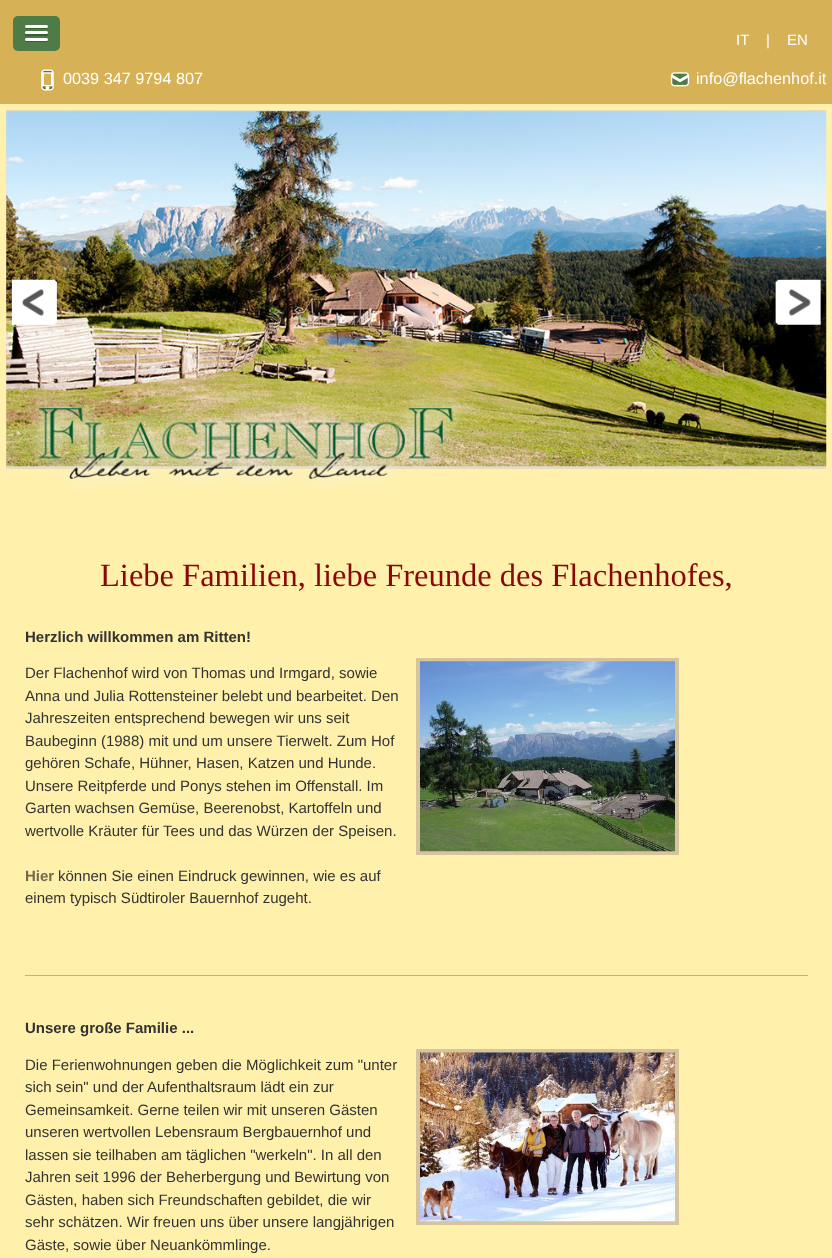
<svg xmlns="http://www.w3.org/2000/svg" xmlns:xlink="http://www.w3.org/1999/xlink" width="832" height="1258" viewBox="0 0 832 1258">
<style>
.cls-1{font:15px Liberation Sans;fill:#ffffff}
.cls-2{font:16.25px Liberation Sans;fill:#ffffff}
.cls-3{font:32.5px Liberation Serif;fill:#880707}
.cls-4{font:bold 15px Liberation Sans;fill:#333333}
.cls-5{font:15px Liberation Sans;fill:#333333}
.cls-6{font:bold 15px Liberation Sans;fill:#736a4d}
</style>
<rect width="100%" height="100%" fill="#d6b156"/>
<rect fill="#4f7c46" x="13" y="16" width="47" height="35" rx="5"/>
<path fill="#3b5d35" d="M25 27C24 29.5 29 29 30 29H43C44 29 47.5 30 48 28C48 27.5 48 26.5 47.5 26.5C47.5 27 47 27.5 46 27.5H26C26 27.5 25.5 27 25 27Z"/>
<rect fill="#ffffff" x="25" y="25" width="23" height="3" rx="1.5"/>
<path fill="#3b5d35" d="M25.5 33.5L25 35C25.5 37 29 36 30 36H33C35 36 46.5 36.5 47.5 35.5C48 35 48 34 47.5 33L46.5 33.5C44.5 34 26 34 25.5 33.5Z"/>
<rect fill="#ffffff" x="25" y="31" width="23" height="3" rx="1.5"/>
<path fill="#3b5d35" d="M25.5 39.5L25 41C25.5 43 29 42 30 42H43C44.5 42 48 43 48 40.5L47.5 39.5L46.5 40C44.5 40.5 26 40.5 25.5 39.5Z"/>
<rect fill="#ffffff" x="25" y="38" width="23" height="3" rx="1.5"/>
<image xlink:href="image0.png" x="41" y="69" width="13" height="22"/>
<image xlink:href="image1.png" x="670" y="72" width="20" height="15"/>
<rect fill="#fff0ab" x="0" y="104" width="832" height="1154"/>
<rect fill="#e5dbc0" x="6" y="110" width="820" height="359"/>
<image xlink:href="image2.png" x="6" y="111" width="821" height="356"/>
<image xlink:href="image3.png" x="11" y="279" width="46" height="46"/>
<image xlink:href="image4.png" x="775" y="279" width="46" height="46"/>
<image xlink:href="image5.png" x="27" y="391" width="441" height="100"/>
<rect fill="none" stroke="#d6c49c" stroke-width="4" x="418" y="660" width="259" height="193"/>
<image xlink:href="image6.png" x="420" y="661" width="255" height="191"/>
<rect fill="#bfb480" x="25" y="975" width="783" height="1"/>
<rect fill="none" stroke="#d6c49c" stroke-width="4" x="418" y="1051" width="259" height="172"/>
<image xlink:href="image7.png" x="420" y="1052" width="255" height="170"/>
<text class="cls-1" x="736" y="45">IT</text>
<text class="cls-1" x="766" y="45">|</text>
<text class="cls-1" x="787" y="45">EN</text>
<text class="cls-2" x="63" y="84">0039 347 9794 807</text>
<text class="cls-2" x="696" y="84">info@flachenhof.it</text>
<text class="cls-3" x="100" y="586">Liebe Familien, liebe Freunde des Flachenhofes,</text>
<text class="cls-4" x="25" y="642">Herzlich willkommen am Ritten!</text>
<text class="cls-5"><tspan x="25" y="678">Der Flachenhof wird von Thomas und Irmgard, sowie</tspan><tspan x="25" y="701">Anna und Julia Rottensteiner belebt und bearbeitet. Den</tspan><tspan x="25" y="723">Jahreszeiten entsprechend bewegen wir uns seit</tspan><tspan x="25" y="746">Baubeginn (1988) mit und um unsere Tierwelt. Zum Hof</tspan><tspan x="25" y="768">gehören Schafe, Hühner, Hasen, Katzen und Hunde.</tspan><tspan x="25" y="791">Unsere Reitpferde und Ponys stehen im Offenstall. Im</tspan><tspan x="25" y="813">Garten wachsen Gemüse, Beerenobst, Kartoffeln und</tspan><tspan x="25" y="836">wertvolle Kräuter für Tees und das Würzen der Speisen.</tspan></text>
<text class="cls-6" x="25" y="881">Hier</text>
<text class="cls-5" x="58" y="881">können Sie einen Eindruck gewinnen, wie es auf</text>
<text class="cls-5" x="25" y="903">einem typisch Südtiroler Bauernhof zugeht.</text>
<text class="cls-4" x="25" y="1033">Unsere große Familie ...</text>
<text class="cls-5"><tspan x="25" y="1070">Die Ferienwohnungen geben die Möglichkeit zum "unter</tspan><tspan x="25" y="1092">sich sein" und der Aufenthaltsraum lädt ein zur</tspan><tspan x="25" y="1115">Gemeinsamkeit. Gerne teilen wir mit unseren Gästen</tspan><tspan x="25" y="1137">unseren wertvollen Lebensraum Bergbauernhof und</tspan><tspan x="25" y="1160">lassen sie teilhaben am täglichen "werkeln". In all den</tspan><tspan x="25" y="1182">Jahren seit 1996 der Beherbergung und Bewirtung von</tspan><tspan x="25" y="1205">Gästen, haben sich Freundschaften gebildet, die wir</tspan><tspan x="25" y="1227">sehr schätzen. Wir freuen uns über unsere langjährigen</tspan><tspan x="25" y="1250">Gäste, sowie über Neuankömmlinge.</tspan></text>
</svg>
